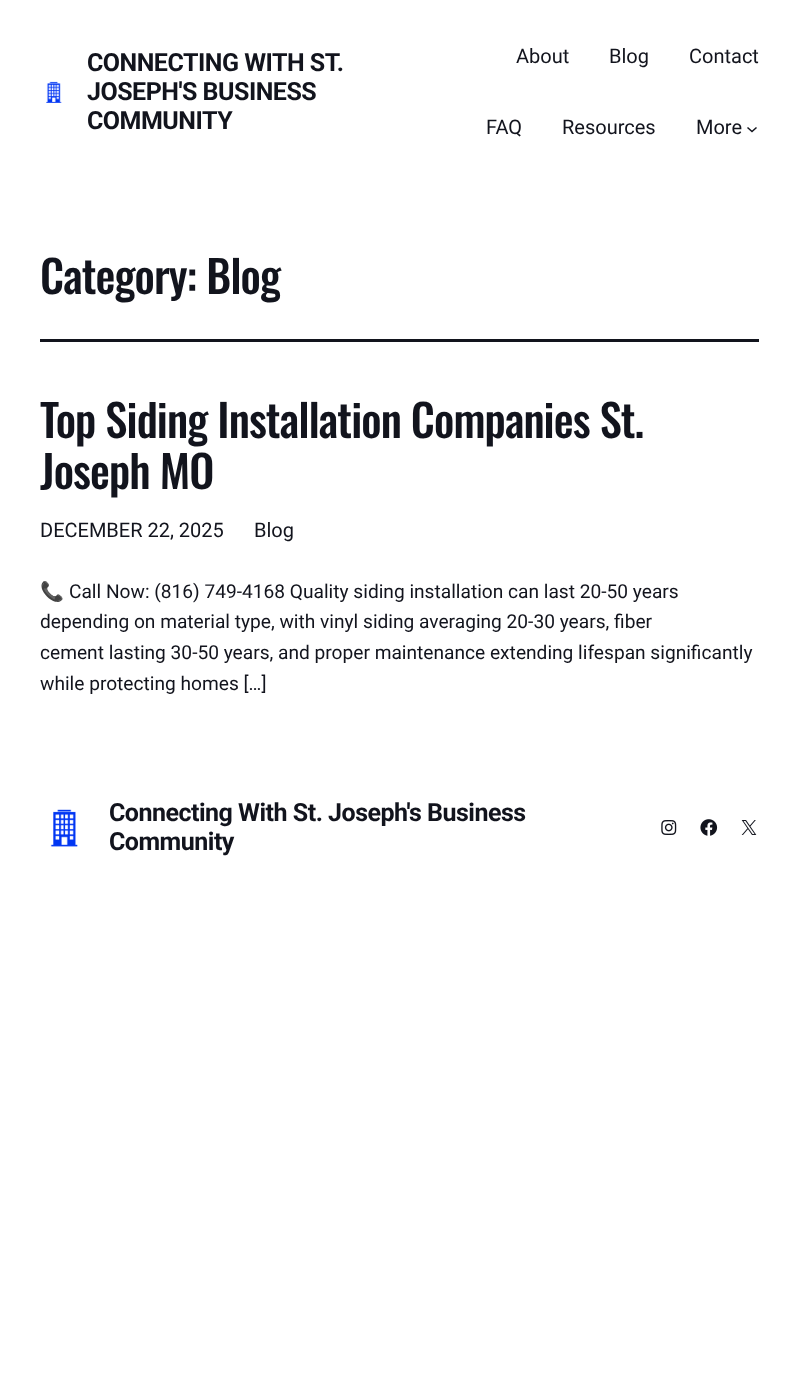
<svg xmlns="http://www.w3.org/2000/svg" xmlns:xlink="http://www.w3.org/1999/xlink" width="798" height="1374" viewBox="0 0 798 1374">
<style>
.cls-1{font:bold 25px Roboto;letter-spacing:-0.5px;fill:#12141d}
.cls-2{font:20px Roboto;fill:#12141d}
.cls-3{font:500 44.6px Oswald;letter-spacing:-0.9px;fill:#12141d}
.cls-4{font:19.15px Noto Color Emoji;fill:#12141d}
.cls-5{font:19.15px Roboto;fill:#12141d}
</style>
<rect width="100%" height="100%" fill="#ffffff"/>
<image xlink:href="image0.png" x="46" y="81" width="16" height="22"/>
<path fill="none" stroke="#12141d" stroke-width="1.5" d="M747.5 127.5L752 131.5L756.5 127.5"/>
<rect fill="#12141d" x="40" y="339" width="719" height="3"/>
<image xlink:href="image1.png" x="50" y="809" width="28" height="38"/>
<image xlink:href="image2.png" x="661" y="820" width="16" height="15"/>
<image xlink:href="image3.png" x="700" y="819" width="18" height="17"/>
<image xlink:href="image4.png" x="741" y="820" width="16" height="15"/>
<text class="cls-1"><tspan x="87" y="71">CONNECTING WITH ST.</tspan><tspan x="87" y="100">JOSEPH'S BUSINESS</tspan><tspan x="87" y="129">COMMUNITY</tspan></text>
<text class="cls-2" x="516" y="63">About</text>
<text class="cls-2" x="609" y="63">Blog</text>
<text class="cls-2" x="689" y="63">Contact</text>
<text class="cls-2" x="486" y="134">FAQ</text>
<text class="cls-2" x="562" y="134">Resources</text>
<text class="cls-2" x="696" y="134">More</text>
<text class="cls-3" x="40" y="294">Category: Blog</text>
<text class="cls-3"><tspan x="40" y="438">Top Siding Installation Companies St.</tspan><tspan x="40" y="489">Joseph MO</tspan></text>
<text class="cls-2" x="40" y="537">DECEMBER 22, 2025</text>
<text class="cls-2" x="254" y="537">Blog</text>
<text class="cls-4" x="40" y="598">📞</text>
<text class="cls-5" x="69" y="598">Call Now: (816) 749-4168 Quality siding installation can last 20-50 years</text>
<text class="cls-5"><tspan x="40" y="628">depending on material type, with vinyl siding averaging 20-30 years, fiber</tspan><tspan x="40" y="659">cement lasting 30-50 years, and proper maintenance extending lifespan significantly</tspan><tspan x="40" y="690">while protecting homes […]</tspan></text>
<text class="cls-1"><tspan x="109" y="821">Connecting With St. Joseph's Business</tspan><tspan x="109" y="850">Community</tspan></text>
</svg>
